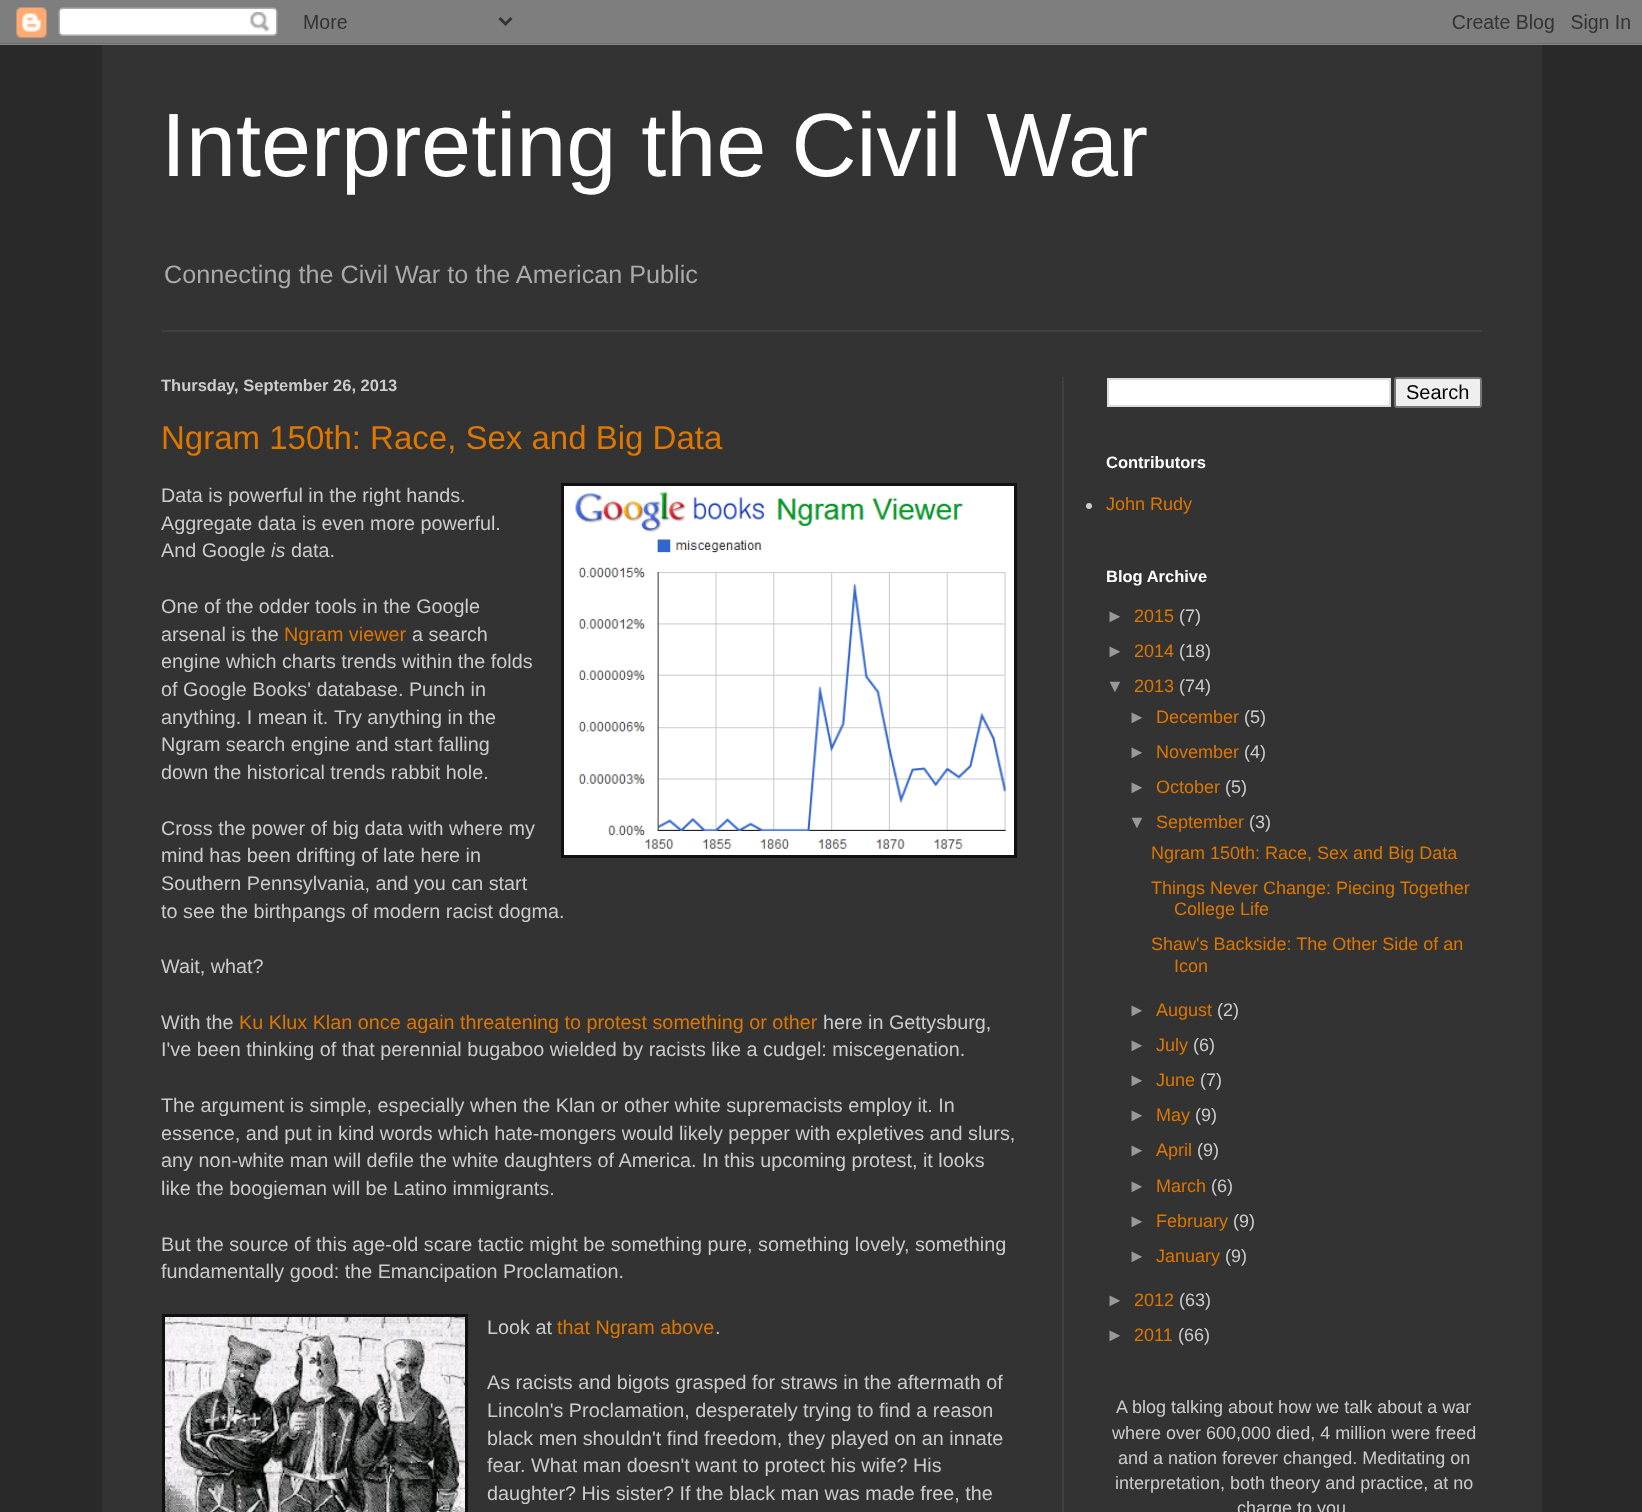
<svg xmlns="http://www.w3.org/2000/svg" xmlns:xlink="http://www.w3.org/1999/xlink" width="1642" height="1512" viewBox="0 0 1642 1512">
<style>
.cls-1{font:90px Liberation Sans;fill:#ffffff}
.cls-2{font:25.2px Liberation Sans;fill:#aaaaaa}
.cls-3{font:bold 16.5px Liberation Sans;fill:#cccccc}
.cls-4{font:33px Liberation Sans;fill:#dd7700}
.cls-5{font:19.8px Liberation Sans;fill:#cccccc}
.cls-6{font:italic 19.8px Liberation Sans;fill:#cccccc}
.cls-7{font:19.8px Liberation Sans;fill:#dd7700}
.cls-8{font:20px Liberation Sans;fill:#000000}
.cls-9{font:bold 16.5px Liberation Sans;fill:#ffffff}
.cls-10{font:18px Liberation Sans;fill:#dd7700}
.cls-11{font:18px Liberation Sans;fill:#999999}
.cls-12{font:18px Liberation Sans;fill:#cccccc}
</style>
<rect width="100%" height="100%" fill="#292929"/>
<image xlink:href="image0.png" x="0" y="0" width="1642" height="45"/>
<rect fill="#333333" x="102" y="45" width="1440" height="1467"/>
<rect fill="#404040" x="162" y="330" width="1320" height="2"/>
<rect fill="#404040" x="1062" y="377" width="2" height="1135"/>
<rect fill="#111111" x="561" y="483" width="456" height="375"/>
<image xlink:href="image1.png" x="564" y="486" width="450" height="369"/>
<rect fill="#111111" x="162" y="1314" width="306" height="198"/>
<image xlink:href="image2.png" x="165" y="1317" width="300" height="195"/>
<rect fill="#ffffff" stroke="#dddddd" stroke-width="2" x="1108" y="379" width="282" height="27"/>
<rect fill="#efefef" stroke="#767676" stroke-width="2" x="1395" y="378" width="86" height="29" rx="2"/>
<circle fill="#cccccc" cx="1089" cy="506" r="3"/>
<text class="cls-1" x="161" y="176">Interpreting the Civil War</text>
<text class="cls-2" x="164" y="283">Connecting the Civil War to the American Public</text>
<text class="cls-3" x="161" y="391">Thursday, September 26, 2013</text>
<text class="cls-4" x="161" y="449">Ngram 150th: Race, Sex and Big Data</text>
<text class="cls-5"><tspan x="161" y="502">Data is powerful in the right hands.</tspan><tspan x="161" y="530">Aggregate data is even more powerful.</tspan><tspan x="161" y="557">And Google</tspan></text>
<text class="cls-6" x="271" y="557">is</text>
<text class="cls-5" x="291" y="557">data.</text>
<text class="cls-5"><tspan x="161" y="613">One of the odder tools in the Google</tspan><tspan x="161" y="641">arsenal is the</tspan></text>
<text class="cls-7" x="284" y="641">Ngram viewer</text>
<text class="cls-5" x="412" y="641">a search</text>
<text class="cls-5"><tspan x="161" y="668">engine which charts trends within the folds</tspan><tspan x="161" y="696">of Google Books' database. Punch in</tspan><tspan x="161" y="724">anything. I mean it.</tspan></text>
<text class="cls-5" x="334" y="724">Try anything in the</text>
<text class="cls-5"><tspan x="161" y="751">Ngram search engine and start falling</tspan><tspan x="161" y="779">down the historical trends rabbit hole.</tspan></text>
<text class="cls-5"><tspan x="161" y="835">Cross the power of big data with where my</tspan><tspan x="161" y="862">mind has been drifting of late here in</tspan><tspan x="161" y="890">Southern Pennsylvania, and you can start</tspan><tspan x="161" y="918">to see the birthpangs of modern racist dogma.</tspan></text>
<text class="cls-5" x="161" y="973">Wait, what?</text>
<text class="cls-5" x="161" y="1029">With the</text>
<text class="cls-7" x="239" y="1029">Ku Klux Klan once again threatening to protest something or other</text>
<text class="cls-5" x="823" y="1029">here in Gettysburg,</text>
<text class="cls-5" x="161" y="1056">I've been thinking of that perennial bugaboo wielded by racists like a cudgel: miscegenation.</text>
<text class="cls-5"><tspan x="161" y="1112">The argument is simple, especially when the Klan or other white supremacists employ it. In</tspan><tspan x="161" y="1140">essence, and put in kind words which hate-mongers would likely pepper with expletives and slurs,</tspan><tspan x="161" y="1167">any non-white man will defile the white daughters of America. In this upcoming protest, it looks</tspan><tspan x="161" y="1195">like the boogieman will be Latino immigrants.</tspan></text>
<text class="cls-5"><tspan x="161" y="1251">But the source of this age-old scare tactic might be something pure, something lovely, something</tspan><tspan x="161" y="1278">fundamentally good: the Emancipation Proclamation.</tspan></text>
<text class="cls-5" x="487" y="1334">Look at</text>
<text class="cls-7" x="557" y="1334">that Ngram above</text>
<text class="cls-5" x="715" y="1334">.</text>
<text class="cls-5"><tspan x="487" y="1389">As racists and bigots grasped for straws in the aftermath of</tspan><tspan x="487" y="1417">Lincoln's Proclamation, desperately trying to find a reason</tspan><tspan x="487" y="1445">black men shouldn't find freedom, they played on an innate</tspan><tspan x="487" y="1472">fear. What man doesn't want to protect his wife? His</tspan><tspan x="487" y="1500">daughter? His sister? If the black man was made free, the</tspan></text>
<text class="cls-8" x="1406" y="399">Search</text>
<text class="cls-9" x="1106" y="468">Contributors</text>
<text class="cls-10" x="1106" y="510">John Rudy</text>
<text class="cls-9" x="1106" y="582">Blog Archive</text>
<text class="cls-11" x="1106" y="622">►</text>
<text class="cls-10" x="1134" y="622">2015</text>
<text class="cls-12" x="1179" y="622">(7)</text>
<text class="cls-11" x="1106" y="657">►</text>
<text class="cls-10" x="1134" y="657">2014</text>
<text class="cls-12" x="1179" y="657">(18)</text>
<text class="cls-11" x="1106" y="692">▼</text>
<text class="cls-10" x="1134" y="692">2013</text>
<text class="cls-12" x="1179" y="692">(74)</text>
<text class="cls-11" x="1128" y="723">►</text>
<text class="cls-10" x="1156" y="723">December</text>
<text class="cls-12" x="1244" y="723">(5)</text>
<text class="cls-11" x="1128" y="758">►</text>
<text class="cls-10" x="1156" y="758">November</text>
<text class="cls-12" x="1244" y="758">(4)</text>
<text class="cls-11" x="1128" y="793">►</text>
<text class="cls-10" x="1156" y="793">October</text>
<text class="cls-12" x="1225" y="793">(5)</text>
<text class="cls-11" x="1128" y="828">▼</text>
<text class="cls-10" x="1156" y="828">September</text>
<text class="cls-12" x="1249" y="828">(3)</text>
<text class="cls-10"><tspan x="1151" y="859">Ngram 150th: Race, Sex and Big Data</tspan><tspan x="1151" y="894">Things Never Change: Piecing Together</tspan></text>
<text class="cls-10" x="1174" y="915">College Life</text>
<text class="cls-10" x="1151" y="950">Shaw's Backside: The Other Side of an</text>
<text class="cls-10" x="1174" y="972">Icon</text>
<text class="cls-11" x="1128" y="1016">►</text>
<text class="cls-10" x="1156" y="1016">August</text>
<text class="cls-12" x="1217" y="1016">(2)</text>
<text class="cls-11" x="1128" y="1051">►</text>
<text class="cls-10" x="1156" y="1051">July</text>
<text class="cls-12" x="1193" y="1051">(6)</text>
<text class="cls-11" x="1128" y="1086">►</text>
<text class="cls-10" x="1156" y="1086">June</text>
<text class="cls-12" x="1200" y="1086">(7)</text>
<text class="cls-11" x="1128" y="1121">►</text>
<text class="cls-10" x="1156" y="1121">May</text>
<text class="cls-12" x="1195" y="1121">(9)</text>
<text class="cls-11" x="1128" y="1156">►</text>
<text class="cls-10" x="1156" y="1156">April</text>
<text class="cls-12" x="1197" y="1156">(9)</text>
<text class="cls-11" x="1128" y="1192">►</text>
<text class="cls-10" x="1156" y="1192">March</text>
<text class="cls-12" x="1211" y="1192">(6)</text>
<text class="cls-11" x="1128" y="1227">►</text>
<text class="cls-10" x="1156" y="1227">February</text>
<text class="cls-12" x="1233" y="1227">(9)</text>
<text class="cls-11" x="1128" y="1262">►</text>
<text class="cls-10" x="1156" y="1262">January</text>
<text class="cls-12" x="1225" y="1262">(9)</text>
<text class="cls-11" x="1106" y="1306">►</text>
<text class="cls-10" x="1134" y="1306">2012</text>
<text class="cls-12" x="1179" y="1306">(63)</text>
<text class="cls-11" x="1106" y="1341">►</text>
<text class="cls-10" x="1134" y="1341">2011</text>
<text class="cls-12" x="1178" y="1341">(66)</text>
<text class="cls-12" x="1116" y="1413">A blog talking about how we talk about a war</text>
<text class="cls-12" x="1112" y="1439">where over 600,000 died, 4 million were freed</text>
<text class="cls-12" x="1118" y="1464">and a nation forever changed. Meditating on</text>
<text class="cls-12" x="1115" y="1489">interpretation, both theory and practice, at no</text>
<text class="cls-12" x="1237" y="1514">charge to you</text>
</svg>
